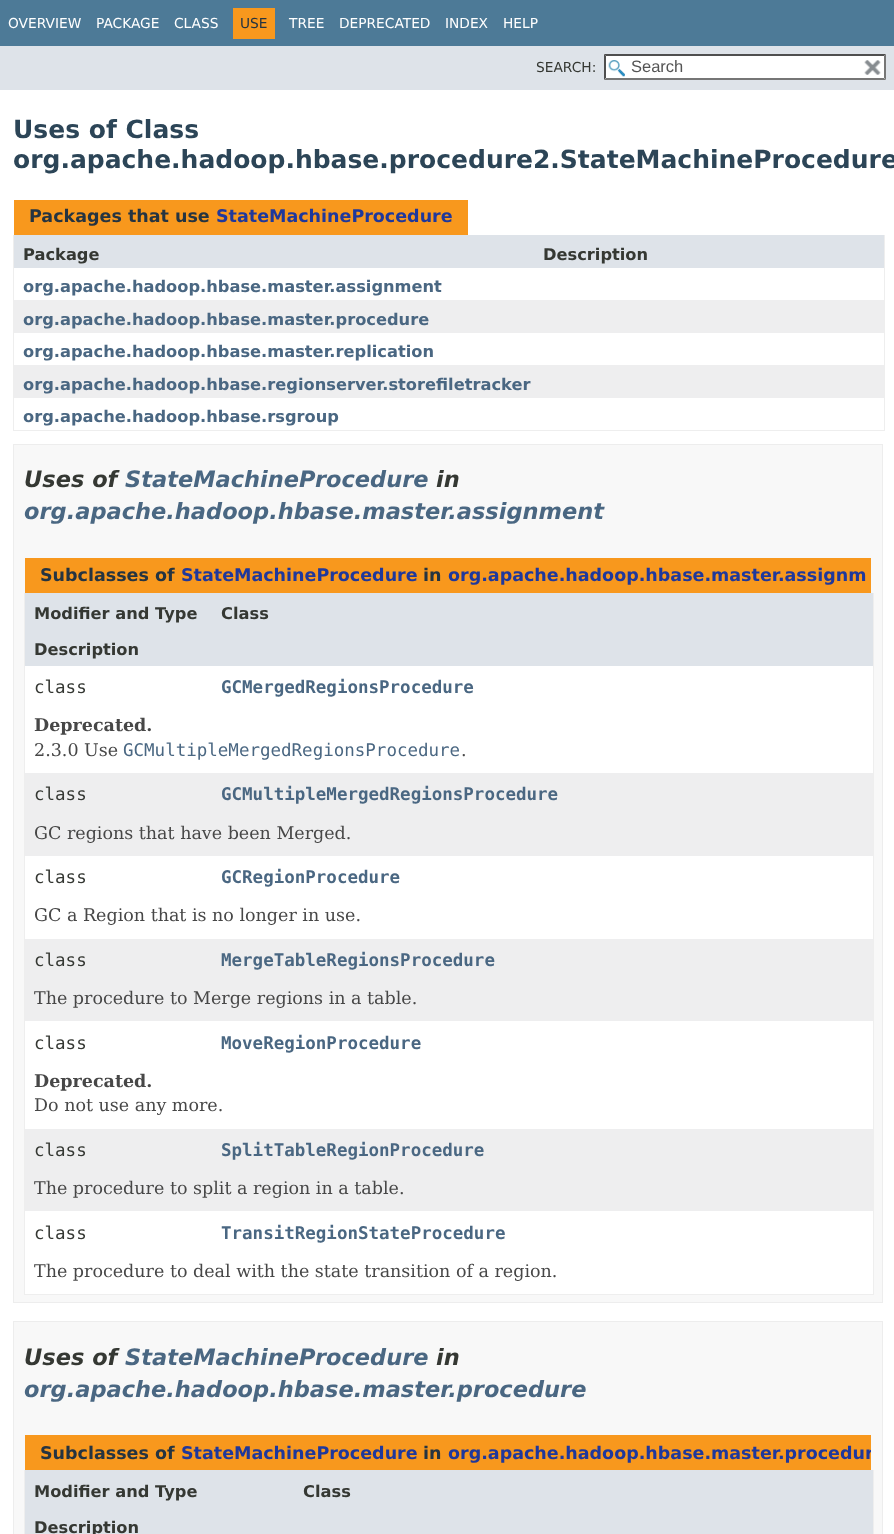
<svg xmlns="http://www.w3.org/2000/svg" xmlns:xlink="http://www.w3.org/1999/xlink" width="894" height="1534" viewBox="0 0 894 1534">
<style>
.cls-1{font:13.75px DejaVu Sans;fill:#ffffff}
.cls-2{font:13.75px DejaVu Sans;fill:#253441}
.cls-3{font:13.75px DejaVu Sans;fill:#353833}
.cls-4{font:16.5px Liberation Sans;fill:#545454}
.cls-5{font:bold 25px DejaVu Sans;fill:#2c4557}
.cls-6{font:bold 17.5px DejaVu Sans;fill:#253441}
.cls-7{font:bold 17.5px DejaVu Sans;fill:#1f389c}
.cls-8{font:bold 16.25px DejaVu Sans;fill:#353833}
.cls-9{font:bold 16.25px DejaVu Sans;fill:#4a6782}
.cls-10{font:italic bold 22.5px DejaVu Sans;fill:#353833}
.cls-11{font:italic bold 22.5px DejaVu Sans;fill:#4a6782}
.cls-12{font:17.5px DejaVu Sans Mono;fill:#353833}
.cls-13{font:bold 17.5px DejaVu Sans Mono;fill:#4a6782}
.cls-14{font:bold 17.5px DejaVu Serif;fill:#474747}
.cls-15{font:17.5px DejaVu Serif;fill:#474747}
.cls-16{font:17.5px DejaVu Sans Mono;fill:#4a6782}
</style>
<defs>
<clipPath id="clip1"><rect x="24" y="1423" width="847" height="47"/></clipPath>
</defs>
<rect width="100%" height="100%" fill="#ffffff"/>
<rect fill="#4d7a97" x="0" y="0" width="894" height="46"/>
<rect fill="#f8981d" x="233" y="8" width="42" height="31"/>
<rect fill="#dee3e9" x="0" y="46" width="894" height="44"/>
<rect fill="#ffffff" x="604" y="54" width="282" height="26"/>
<image xlink:href="image0.png" x="608" y="60" width="17" height="17"/>
<path fill="#4f4f4f" d="M604 54H886L884 56H606Z"/>
<path fill="#767676" d="M886 54V80L884 77.5V56Z"/>
<path fill="#767676" d="M886 80H604L606 78H884Z"/>
<path fill="#4f4f4f" d="M604 80V54L606 56V77.5Z"/>
<image xlink:href="image1.png" x="864" y="60" width="17" height="15"/>
<rect fill="#f8981d" x="14" y="200" width="454" height="35"/>
<rect fill="#eeeeee" x="884" y="235" width="1" height="196"/>
<rect fill="#eeeeee" x="13" y="430" width="872" height="1"/>
<rect fill="#eeeeee" x="13" y="235" width="1" height="196"/>
<rect fill="#dee3e9" x="14" y="235" width="870" height="33"/>
<rect fill="#eeeeef" x="14" y="300" width="870" height="33"/>
<rect fill="#eeeeef" x="14" y="365" width="870" height="33"/>
<rect fill="#f8f8f8" stroke="#ededed" x="13.5" y="444.5" width="869" height="858"/>
<rect fill="#f8981d" x="25" y="558" width="846" height="35"/>
<rect fill="#eeeeee" x="873" y="593" width="1" height="702"/>
<rect fill="#eeeeee" x="24" y="1294" width="850" height="1"/>
<rect fill="#eeeeee" x="24" y="593" width="1" height="702"/>
<rect fill="#dee3e9" x="25" y="593" width="848" height="36"/>
<rect fill="#dee3e9" x="25" y="629" width="848" height="37"/>
<rect fill="#ffffff" x="25" y="666" width="848" height="38"/>
<rect fill="#ffffff" x="25" y="704" width="848" height="69"/>
<rect fill="#eeeeef" x="25" y="773" width="848" height="38"/>
<rect fill="#eeeeef" x="25" y="811" width="848" height="45"/>
<rect fill="#ffffff" x="25" y="856" width="848" height="38"/>
<rect fill="#ffffff" x="25" y="894" width="848" height="45"/>
<rect fill="#eeeeef" x="25" y="939" width="848" height="37"/>
<rect fill="#eeeeef" x="25" y="976" width="848" height="45"/>
<rect fill="#ffffff" x="25" y="1021" width="848" height="38"/>
<rect fill="#ffffff" x="25" y="1059" width="848" height="70"/>
<rect fill="#eeeeef" x="25" y="1129" width="848" height="37"/>
<rect fill="#eeeeef" x="25" y="1166" width="848" height="45"/>
<rect fill="#ffffff" x="25" y="1211" width="848" height="38"/>
<rect fill="#ffffff" x="25" y="1249" width="848" height="45"/>
<rect fill="#f8f8f8" stroke="#ededed" x="13.5" y="1321.5" width="869" height="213"/>
<rect fill="#f8981d" x="25" y="1435" width="846" height="35"/>
<rect fill="#eeeeee" x="873" y="1470" width="1" height="64"/>
<rect fill="#eeeeee" x="24" y="1470" width="1" height="64"/>
<rect fill="#dee3e9" x="25" y="1470" width="848" height="38"/>
<rect fill="#dee3e9" x="25" y="1508" width="848" height="26"/>
<text class="cls-1" x="8" y="28">OVERVIEW</text>
<text class="cls-1" x="96" y="28">PACKAGE</text>
<text class="cls-1" x="174" y="28">CLASS</text>
<text class="cls-2" x="240" y="28">USE</text>
<text class="cls-1" x="289" y="28">TREE</text>
<text class="cls-1" x="339" y="28">DEPRECATED</text>
<text class="cls-1" x="445" y="28">INDEX</text>
<text class="cls-1" x="503" y="28">HELP</text>
<text class="cls-3" x="536" y="72">SEARCH:</text>
<text class="cls-4" x="631" y="72">Search</text>
<text class="cls-5"><tspan x="13" y="138">Uses of Class</tspan><tspan x="13" y="168">org.apache.hadoop.hbase.procedure2.StateMachineProcedure</tspan></text>
<text class="cls-6" x="29" y="222">Packages that use</text>
<text class="cls-7" x="216" y="222">StateMachineProcedure</text>
<text class="cls-8" x="23" y="260">Package</text>
<text class="cls-8" x="543" y="260">Description</text>
<text class="cls-9" x="23" y="292">org.apache.hadoop.hbase.master.assignment</text>
<text class="cls-9"><tspan x="23" y="325">org.apache.hadoop.hbase.master.procedure</tspan><tspan x="23" y="357">org.apache.hadoop.hbase.master.replication</tspan></text>
<text class="cls-9"><tspan x="23" y="390">org.apache.hadoop.hbase.regionserver.storefiletracker</tspan><tspan x="23" y="422">org.apache.hadoop.hbase.rsgroup</tspan></text>
<text class="cls-10" x="24" y="487">Uses of</text>
<text class="cls-11" x="125" y="487">StateMachineProcedure</text>
<text class="cls-10" x="436" y="487">in</text>
<text class="cls-11" x="24" y="519">org.apache.hadoop.hbase.master.assignment</text>
<text class="cls-6" x="40" y="581">Subclasses of</text>
<text class="cls-7" x="181" y="581">StateMachineProcedure</text>
<text class="cls-6" x="423" y="581">in</text>
<text class="cls-7" x="448" y="581">org.apache.hadoop.hbase.master.assignm</text>
<text class="cls-8" x="34" y="619">Modifier and Type</text>
<text class="cls-8" x="221" y="619">Class</text>
<text class="cls-8" x="34" y="655">Description</text>
<text class="cls-12" x="34" y="693">class</text>
<text class="cls-13" x="221" y="693">GCMergedRegionsProcedure</text>
<text class="cls-14" x="34" y="731">Deprecated.</text>
<text class="cls-15" x="34" y="756">2.3.0 Use</text>
<text class="cls-16" x="123" y="756">GCMultipleMergedRegionsProcedure</text>
<text class="cls-15" x="461" y="756">.</text>
<text class="cls-12" x="34" y="800">class</text>
<text class="cls-13" x="221" y="800">GCMultipleMergedRegionsProcedure</text>
<text class="cls-15" x="34" y="839">GC regions that have been Merged.</text>
<text class="cls-12" x="34" y="883">class</text>
<text class="cls-13" x="221" y="883">GCRegionProcedure</text>
<text class="cls-15" x="34" y="921">GC a Region that is no longer in use.</text>
<text class="cls-12" x="34" y="966">class</text>
<text class="cls-13" x="221" y="966">MergeTableRegionsProcedure</text>
<text class="cls-15" x="34" y="1004">The procedure to Merge regions in a table.</text>
<text class="cls-12" x="34" y="1049">class</text>
<text class="cls-13" x="221" y="1049">MoveRegionProcedure</text>
<text class="cls-14" x="34" y="1087">Deprecated.</text>
<text class="cls-15" x="34" y="1111">Do not use any more.</text>
<text class="cls-12" x="34" y="1156">class</text>
<text class="cls-13" x="221" y="1156">SplitTableRegionProcedure</text>
<text class="cls-15" x="34" y="1194">The procedure to split a region in a table.</text>
<text class="cls-12" x="34" y="1239">class</text>
<text class="cls-13" x="221" y="1239">TransitRegionStateProcedure</text>
<text class="cls-15" x="34" y="1277">The procedure to deal with the state transition of a region.</text>
<text class="cls-10" x="24" y="1365">Uses of</text>
<text class="cls-11" x="125" y="1365">StateMachineProcedure</text>
<text class="cls-10" x="436" y="1365">in</text>
<text class="cls-11" x="24" y="1397">org.apache.hadoop.hbase.master.procedure</text>
<text class="cls-6" x="40" y="1459">Subclasses of</text>
<text class="cls-7" x="181" y="1459">StateMachineProcedure</text>
<text class="cls-6" x="423" y="1459">in</text>
<g clip-path="url(#clip1)">
<text class="cls-7" x="448" y="1459">org.apache.hadoop.hbase.master.procedur</text>
</g>
<text class="cls-8" x="34" y="1497">Modifier and Type</text>
<text class="cls-8" x="303" y="1497">Class</text>
<text class="cls-8" x="34" y="1533">Description</text>
</svg>
